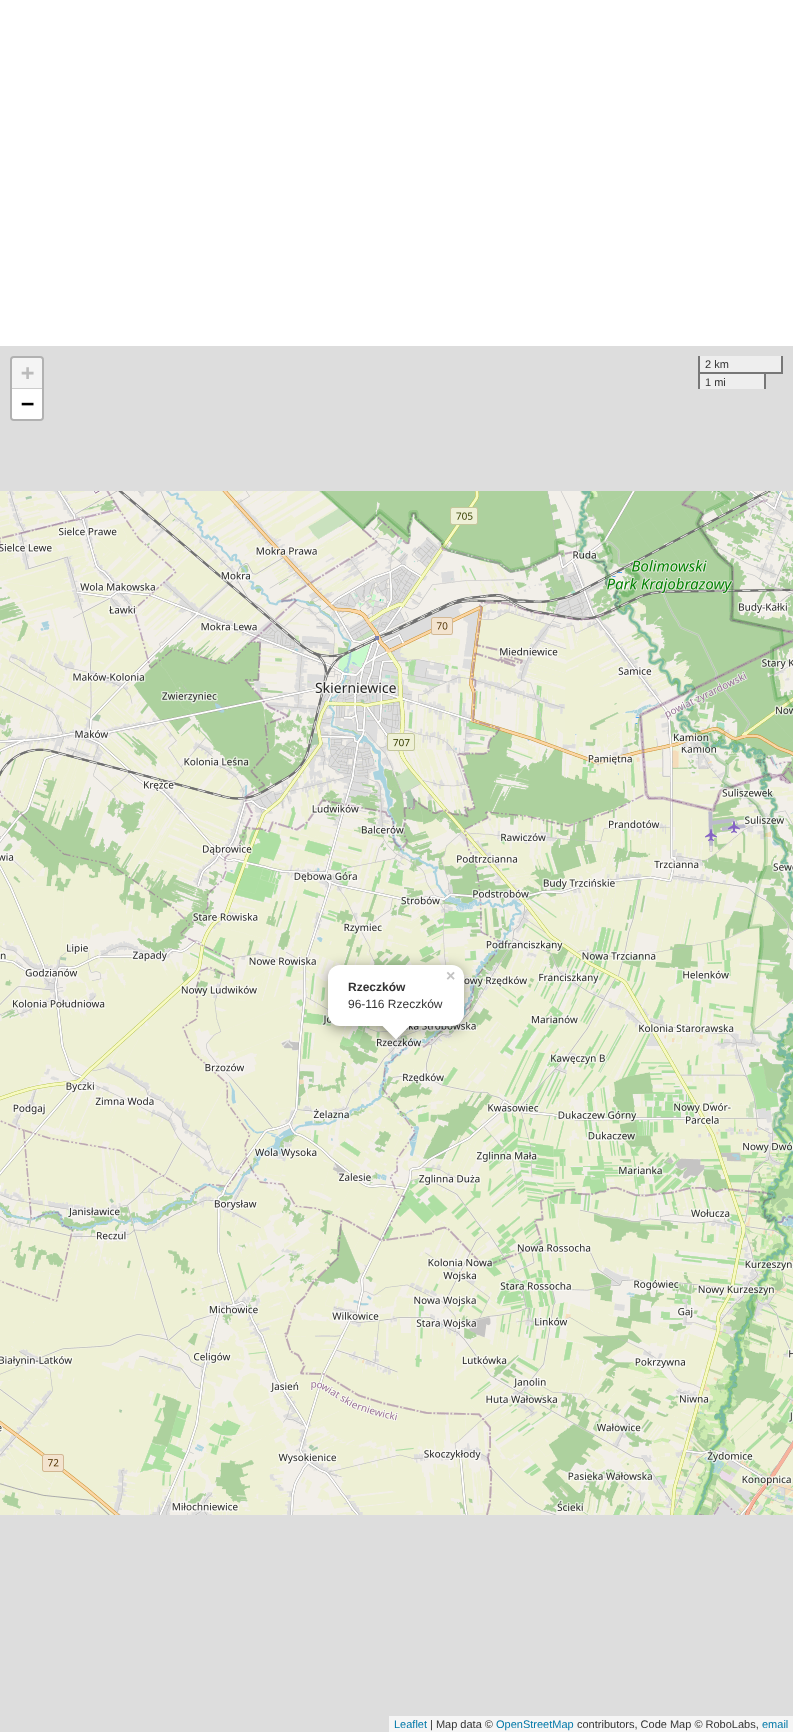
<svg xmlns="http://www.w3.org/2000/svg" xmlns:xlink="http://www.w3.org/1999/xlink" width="793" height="1732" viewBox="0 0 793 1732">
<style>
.cls-1{font:bold 22px DejaVu Sans Mono;fill:#bbbbbb}
.cls-2{font:bold 22px DejaVu Sans Mono;fill:#000000}
.cls-3{font:11px Liberation Sans;fill:#333333}
.cls-4{font:11px Liberation Sans;fill:#0078a8}
.cls-5{font:bold 16px Liberation Sans;fill:#c3c3c3}
.cls-6{font:bold 12px Liberation Sans;fill:#333333}
.cls-7{font:12px Liberation Sans;fill:#333333}
</style>
<defs>
<clipPath id="clip1"><rect x="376" y="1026" width="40" height="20"/></clipPath>
<clipPath id="clip2"><rect x="376" y="1026" width="40" height="20"/></clipPath>
</defs>
<rect width="100%" height="100%" fill="#ffffff"/>
<rect fill="#dddddd" x="0" y="346" width="793" height="1386"/>
<rect fill="#eeeeee" x="700" y="374" width="64" height="15"/>
<rect fill="none" stroke="#b1b1b1" stroke-width="2" x="11" y="357" width="32" height="63" rx="3"/>
<path fill="#f4f4f4" d="M14 358H40C41 358 42 359 42 360V389H12V360C12 359 13 358 14 358Z"/>
<rect fill="#cccccc" x="12" y="388" width="30" height="1"/>
<path fill="#ffffff" d="M12 389H42V417C42 418 41 419 40 419H14C13 419 12 418 12 417Z"/>
<rect fill="#eeeeee" x="700" y="356" width="81" height="16"/>
<rect fill="#777777" x="781" y="356" width="2" height="18"/>
<rect fill="#777777" x="766" y="372" width="17" height="2"/>
<rect fill="#777777" x="698" y="356" width="2" height="18"/>
<rect fill="#777777" x="698" y="372" width="68" height="2"/>
<rect fill="#777777" x="764" y="372" width="2" height="17"/>
<rect fill="#777777" x="698" y="372" width="2" height="17"/>
<rect fill="#f5f5f5" x="389" y="1716" width="404" height="16"/>
<image xlink:href="image0.png" x="0" y="491" width="53" height="256"/>
<image xlink:href="image1.png" x="53" y="491" width="256" height="256"/>
<image xlink:href="image2.png" x="309" y="491" width="256" height="256"/>
<image xlink:href="image3.png" x="565" y="491" width="228" height="256"/>
<image xlink:href="image4.png" x="0" y="747" width="53" height="256"/>
<image xlink:href="image5.png" x="53" y="747" width="256" height="256"/>
<image xlink:href="image6.png" x="309" y="747" width="256" height="256"/>
<image xlink:href="image7.png" x="565" y="747" width="228" height="256"/>
<image xlink:href="image8.png" x="0" y="1003" width="53" height="256"/>
<image xlink:href="image9.png" x="53" y="1003" width="256" height="256"/>
<image xlink:href="image10.png" x="309" y="1003" width="256" height="256"/>
<image xlink:href="image11.png" x="565" y="1003" width="228" height="256"/>
<image xlink:href="image12.png" x="0" y="1259" width="53" height="256"/>
<image xlink:href="image13.png" x="53" y="1259" width="256" height="256"/>
<image xlink:href="image14.png" x="309" y="1259" width="256" height="256"/>
<image xlink:href="image15.png" x="565" y="1259" width="228" height="256"/>
<rect fill="#000000" fill-opacity="0.4" filter="blur(7px)" x="328" y="968" width="136" height="61" rx="12"/>
<rect fill="#ffffff" x="328" y="965" width="136" height="61" rx="12"/>
<g clip-path="url(#clip1)">
<rect fill="#000000" fill-opacity="0.4" filter="blur(7px)" x="387" y="1019" width="19" height="19"/>
</g>
<g clip-path="url(#clip2)">
<path fill="#ffffff" d="M396 1012.5L409.5 1026L396 1039.5L382.5 1026Z"/>
</g>
<text class="cls-1" x="21" y="380">+</text>
<text class="cls-2" x="21" y="411">−</text>
<text class="cls-3"><tspan x="705" y="368">2 km</tspan><tspan x="705" y="386">1 mi</tspan></text>
<text class="cls-4" x="394" y="1728">Leaflet</text>
<text class="cls-3" x="430" y="1728">| Map data ©</text>
<text class="cls-4" x="496" y="1728">OpenStreetMap</text>
<text class="cls-3" x="577" y="1728">contributors, Code Map © RoboLabs,</text>
<text class="cls-4" x="762" y="1728">email</text>
<text class="cls-5" x="446" y="981">×</text>
<text class="cls-6" x="348" y="991">Rzeczków</text>
<text class="cls-7" x="348" y="1008">96-116 Rzeczków</text>
</svg>
